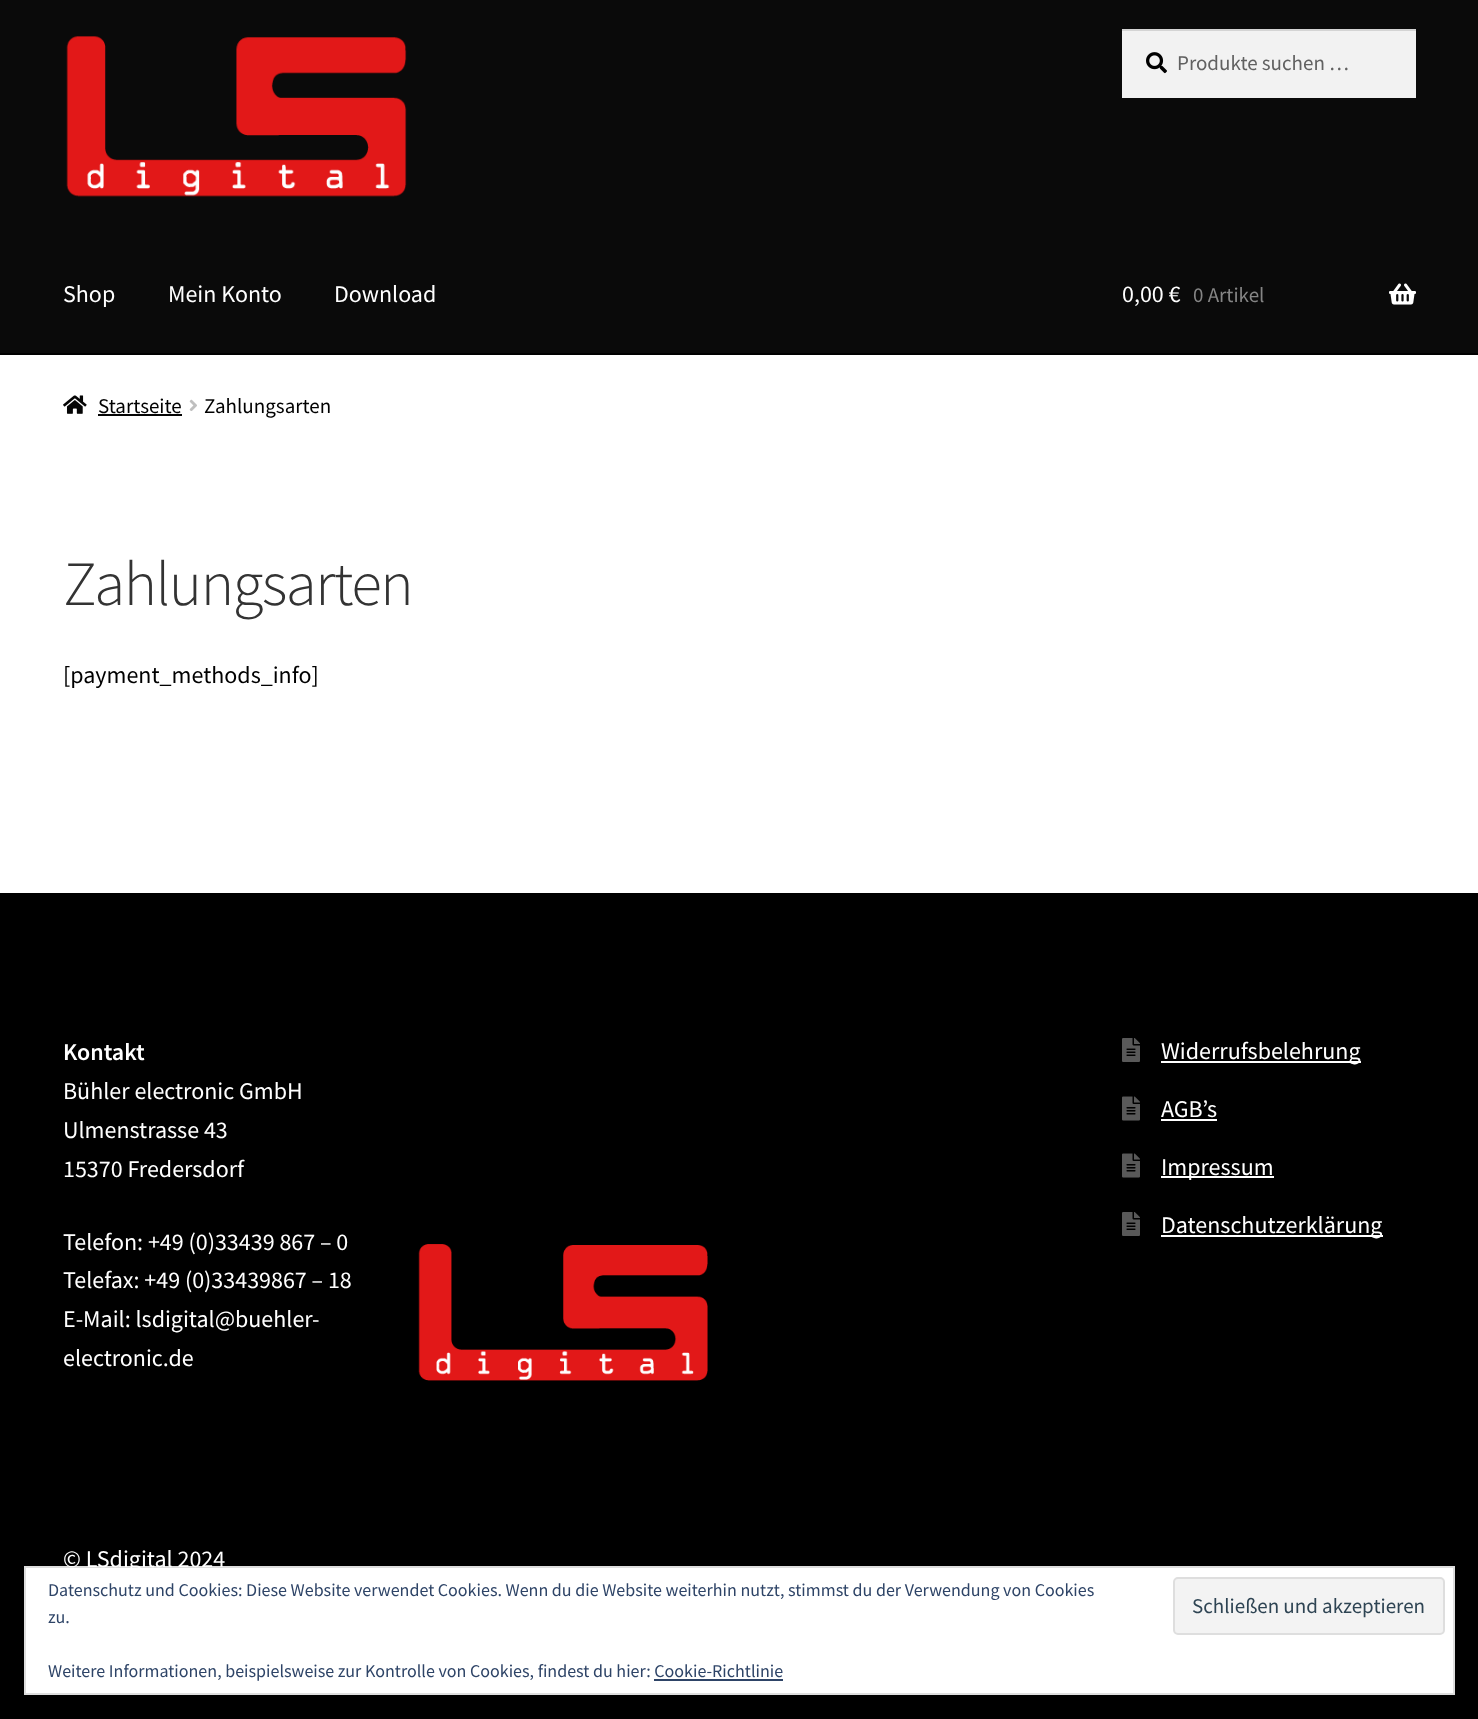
<svg xmlns="http://www.w3.org/2000/svg" xmlns:xlink="http://www.w3.org/1999/xlink" width="1478" height="1719" viewBox="0 0 1478 1719">
<style>
.cls-1{font:21px Source Sans Pro;fill:#616161}
.cls-2{font:24px Source Sans Pro;fill:#ffffff}
.cls-3{font:21px Source Sans Pro;fill:#858585}
.cls-4{font:21px Source Sans Pro;fill:#000000}
.cls-5{font:300 63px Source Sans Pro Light;letter-spacing:-1.5px;fill:#333333}
.cls-6{font:24px Source Sans Pro;fill:#000000}
.cls-7{font:600 24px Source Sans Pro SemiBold;fill:#ffffff}
.cls-8{font:18px Source Sans Pro;fill:#2e4467}
.cls-9{font:21px Source Sans Pro;fill:#2e4453}
</style>
<rect width="100%" height="100%" fill="#ffffff"/>
<rect fill="#0a0a0a" x="0" y="0" width="1478" height="353"/>
<rect fill="#000000" x="0" y="353" width="1478" height="2"/>
<image xlink:href="image0.png" x="66" y="36" width="341" height="161"/>
<rect fill="#f2f2f2" x="1122" y="31" width="294" height="67"/>
<image xlink:href="image1.png" x="1146" y="52" width="21" height="22"/>
<rect fill="#d4d4d4" x="1122" y="29" width="294" height="2"/>
<image xlink:href="image2.png" x="1389" y="283" width="27" height="22"/>
<image xlink:href="image3.png" x="63" y="395" width="24" height="19"/>
<rect fill="#050505" x="98" y="414" width="84" height="2"/>
<image xlink:href="image4.png" x="189" y="399" width="8" height="12"/>
<rect fill="#000000" x="0" y="893" width="1478" height="826"/>
<image xlink:href="image5.png" x="418" y="1244" width="290" height="137"/>
<image xlink:href="image6.png" x="1122" y="1038" width="18" height="24"/>
<rect fill="#ffffff" x="1161" y="1061" width="200" height="2"/>
<image xlink:href="image7.png" x="1122" y="1096" width="18" height="25"/>
<rect fill="#ffffff" x="1161" y="1119" width="56" height="2"/>
<image xlink:href="image7.png" x="1122" y="1153" width="18" height="25"/>
<rect fill="#ffffff" x="1161" y="1176" width="113" height="2"/>
<image xlink:href="image6.png" x="1122" y="1212" width="18" height="24"/>
<rect fill="#ffffff" x="1161" y="1235" width="222" height="2"/>
<rect fill="#ffffff" stroke="#dedede" stroke-width="2" x="25" y="1567" width="1429" height="127"/>
<rect fill="#f3f3f3" stroke="#dedede" stroke-width="2" x="1174" y="1578" width="270" height="56" rx="4"/>
<rect fill="#2e4467" x="654" y="1679" width="129" height="2"/>
<text class="cls-1" x="1177" y="70">Produkte suchen …</text>
<text class="cls-2" x="63" y="302">Shop</text>
<text class="cls-2" x="168" y="302">Mein Konto</text>
<text class="cls-2" x="334" y="302">Download</text>
<text class="cls-2" x="1122" y="302">0,00 €</text>
<text class="cls-3" x="1193" y="302">0 Artikel</text>
<text class="cls-4" x="98" y="413">Startseite</text>
<text class="cls-4" x="204" y="413">Zahlungsarten</text>
<text class="cls-5" x="63" y="605">Zahlungsarten</text>
<text class="cls-6" x="63" y="683">[payment_methods_info]</text>
<text class="cls-7" x="63" y="1060">Kontakt</text>
<text class="cls-2"><tspan x="63" y="1099">Bühler electronic GmbH</tspan><tspan x="63" y="1138">Ulmenstrasse 43</tspan><tspan x="63" y="1177">15370 Fredersdorf</tspan></text>
<text class="cls-2"><tspan x="63" y="1250">Telefon: +49 (0)33439 867 – 0</tspan><tspan x="63" y="1288">Telefax: +49 (0)33439867 – 18</tspan><tspan x="63" y="1327">E-Mail: lsdigital@buehler-</tspan><tspan x="63" y="1366">electronic.de</tspan></text>
<text class="cls-2" x="1161" y="1059">Widerrufsbelehrung</text>
<text class="cls-2" x="1161" y="1117">AGB’s</text>
<text class="cls-2" x="1161" y="1175">Impressum</text>
<text class="cls-2" x="1161" y="1233">Datenschutzerklärung</text>
<text class="cls-2" x="63" y="1567">© LSdigital 2024</text>
<text class="cls-8" x="48" y="1596">Datenschutz und Cookies: Diese Website verwendet Cookies. Wenn du die Website weiterhin nutzt, stimmst du der Verwendung von Cookies</text>
<text class="cls-9" x="1192" y="1613">Schließen und akzeptieren</text>
<text class="cls-8" x="48" y="1623">zu.</text>
<text class="cls-8" x="48" y="1677">Weitere Informationen, beispielsweise zur Kontrolle von Cookies, findest du hier: Cookie-Richtlinie</text>
</svg>
